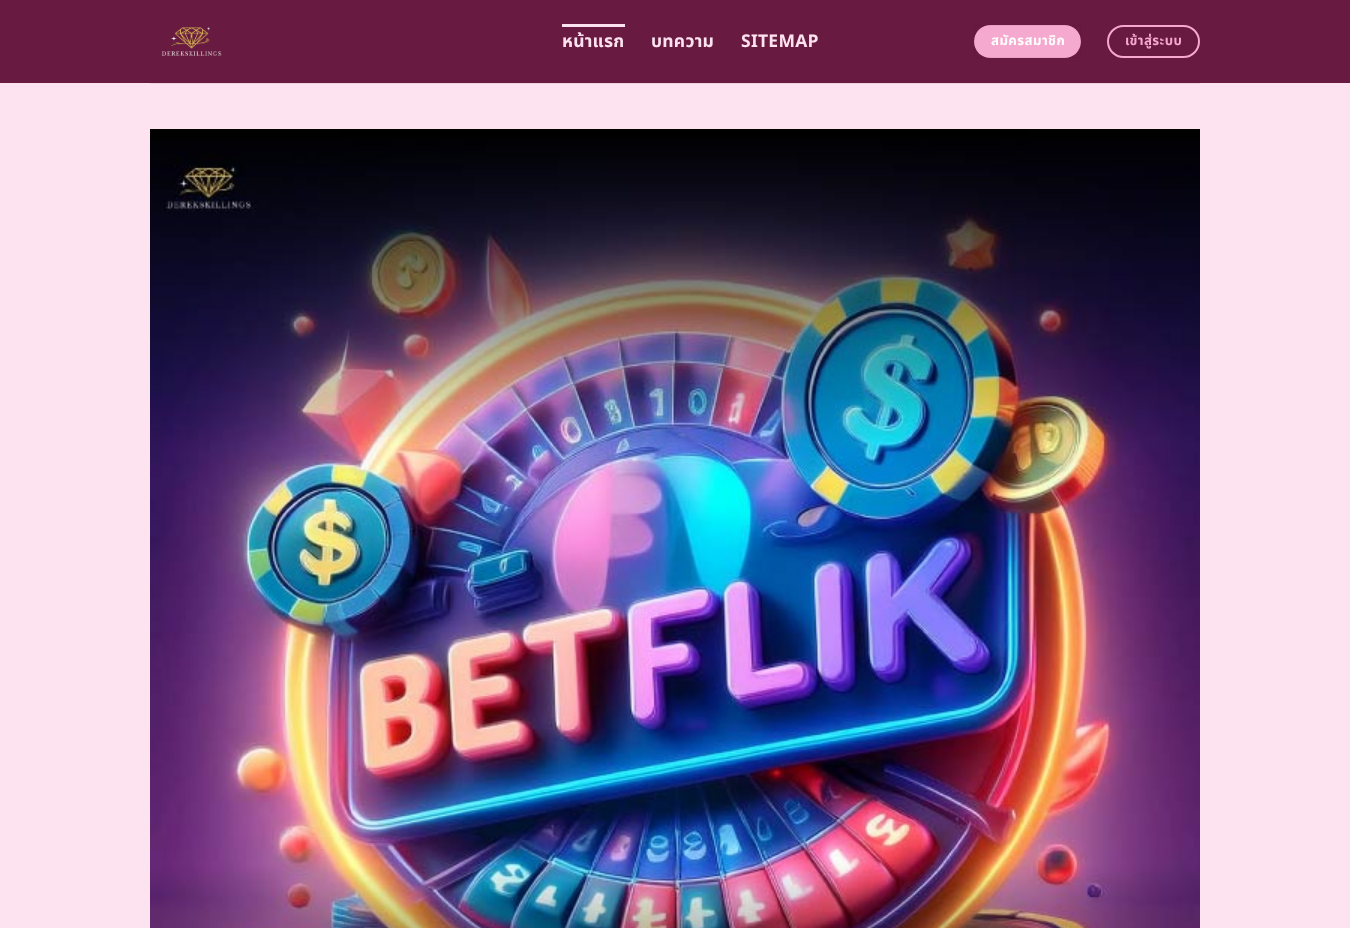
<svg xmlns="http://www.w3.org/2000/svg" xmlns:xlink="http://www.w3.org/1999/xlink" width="1350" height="928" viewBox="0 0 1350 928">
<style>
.cls-1{font:bold 17.5px Noto Sans Thai;letter-spacing:0.25px;fill:#fde3f0}
.cls-2{font:bold 13.25px Noto Sans Thai;letter-spacing:0.4px;fill:#ffffff}
.cls-3{font:bold 13.25px Noto Sans Thai;letter-spacing:0.4px;fill:#f6a9ce}
</style>
<rect width="100%" height="100%" fill="#fde3f0"/>
<rect fill="#691a40" x="0" y="0" width="1350" height="83"/>
<image xlink:href="image0.png" x="161" y="26" width="61" height="30"/>
<rect fill="#fde3f0" x="562" y="24" width="63" height="3"/>
<rect fill="#f6a9ce" x="974" y="25" width="107" height="33" rx="16.5"/>
<rect fill="none" stroke="#000000" stroke-opacity="0.05" x="974.5" y="25.5" width="106" height="32"/>
<rect fill="none" stroke="#f6a9ce" stroke-width="2" x="1108" y="26" width="91" height="31" rx="15.5"/>
<rect fill="#eecfde" x="150" y="83" width="1050" height="1"/>
<image xlink:href="image1.png" x="150" y="129" width="1050" height="799"/>
<text class="cls-1" x="562" y="47">หน้าแรก</text>
<text class="cls-1" x="651" y="47">บทความ</text>
<text class="cls-1" x="741" y="47">SITEMAP</text>
<text class="cls-2" x="991" y="45">สมัครสมาชิก</text>
<text class="cls-3" x="1125" y="45">เข้าสู่ระบบ</text>
</svg>
